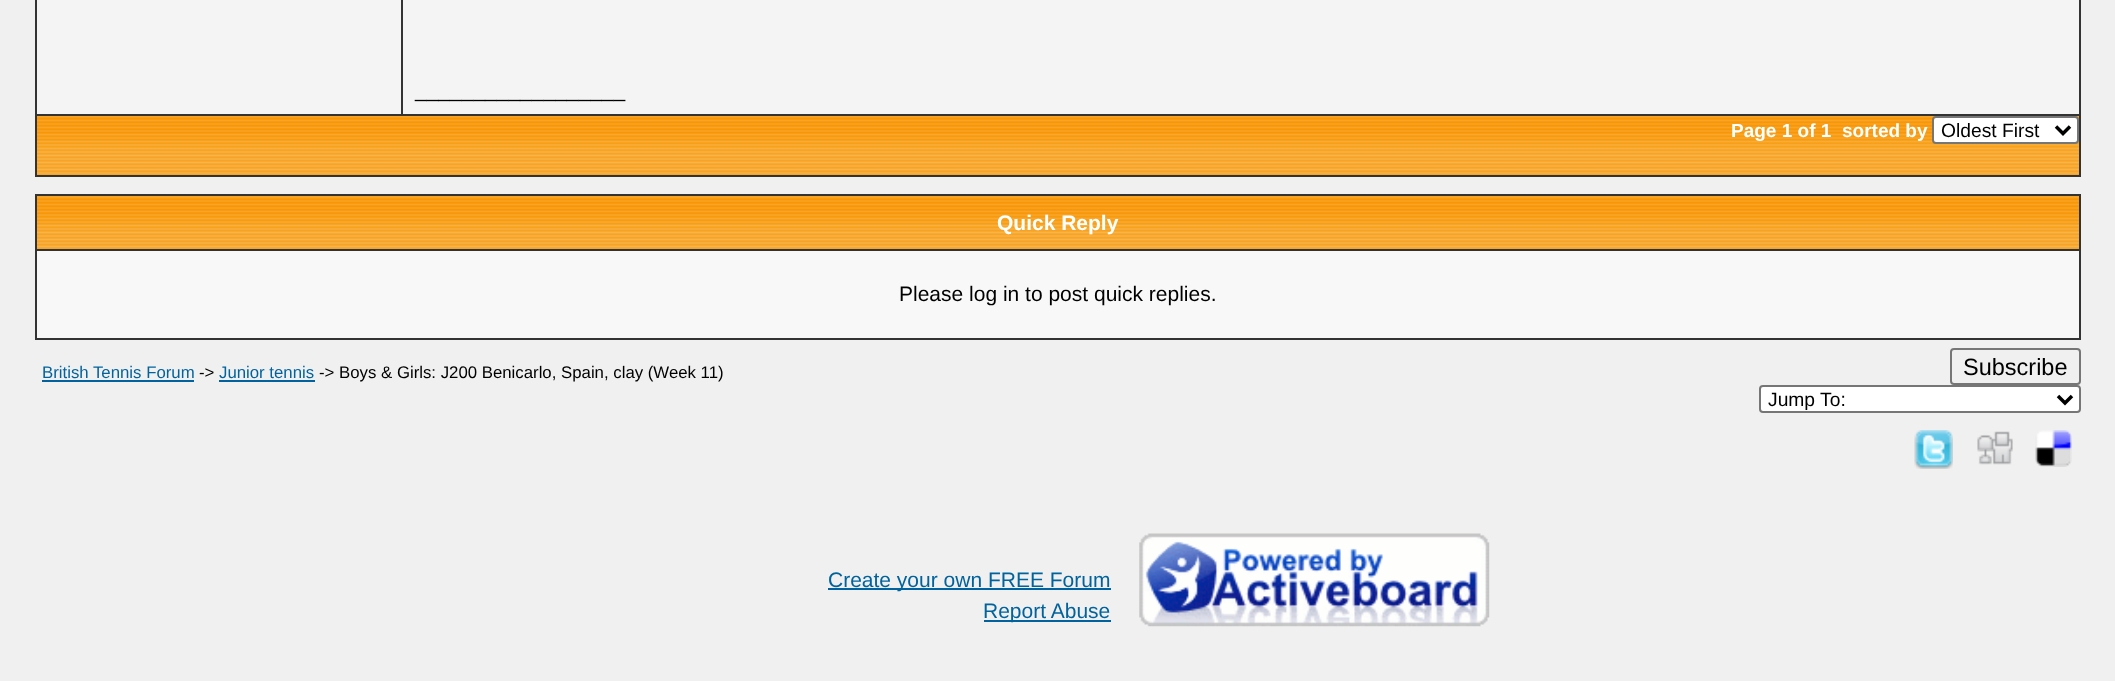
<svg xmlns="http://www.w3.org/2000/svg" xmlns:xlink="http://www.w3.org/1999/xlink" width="2115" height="681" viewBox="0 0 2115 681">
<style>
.cls-1{font:21px Liberation Sans;fill:#000000}
.cls-2{font:bold 19px Liberation Sans;fill:#ffffff}
.cls-3{font:19.25px Liberation Sans;fill:#000000}
.cls-4{font:bold 21px Liberation Sans;fill:#ffffff}
.cls-5{font:16.8px Liberation Sans;fill:#00639d}
.cls-6{font:16.8px Liberation Sans;fill:#000000}
.cls-7{font:23.5px Liberation Sans;fill:#000000}
.cls-8{font:21px Liberation Sans;fill:#00639d}
</style>
<rect width="100%" height="100%" fill="#f0f0f0"/>
<rect fill="#333333" x="2079" y="0" width="2" height="177"/>
<rect fill="#333333" x="35" y="175" width="2046" height="2"/>
<rect fill="#333333" x="35" y="0" width="2" height="177"/>
<rect fill="#f4f4f4" x="37" y="0" width="364" height="114"/>
<rect fill="#f4f4f4" x="403" y="0" width="1676" height="114"/>
<rect fill="#333333" x="35" y="114" width="2046" height="2"/>
<rect fill="#333333" x="401" y="0" width="2" height="116"/>
<image xlink:href="image0.png" x="37" y="116" width="2042" height="59"/>
<rect fill="#ffffff" stroke="#767676" stroke-width="2" x="1933" y="117" width="145" height="26" rx="3"/>
<path fill="none" stroke="#000000" stroke-width="3.5" d="M2056 126.5L2063 133.5L2070 126.5"/>
<rect fill="#333333" x="35" y="194" width="2046" height="2"/>
<rect fill="#333333" x="2079" y="194" width="2" height="146"/>
<rect fill="#333333" x="35" y="338" width="2046" height="2"/>
<rect fill="#333333" x="35" y="194" width="2" height="146"/>
<image xlink:href="image1.png" x="37" y="196" width="2042" height="53"/>
<rect fill="#333333" x="35" y="249" width="2046" height="2"/>
<rect fill="#f8f8f8" x="37" y="251" width="2042" height="87"/>
<rect fill="#00639d" x="42" y="380" width="152" height="2"/>
<rect fill="#00639d" x="219" y="380" width="96" height="2"/>
<rect fill="none" stroke="#767676" stroke-width="2" x="1951" y="349" width="129" height="35" rx="3"/>
<rect fill="#ffffff" stroke="#767676" stroke-width="2" x="1760" y="386" width="320" height="26" rx="3"/>
<path fill="none" stroke="#000000" stroke-width="3.5" d="M2058 396L2065 403L2072 396"/>
<image xlink:href="image2.png" x="1914" y="430" width="39" height="39"/>
<image xlink:href="image3.png" x="1977" y="431" width="36" height="34"/>
<image xlink:href="image4.png" x="2035" y="430" width="37" height="37"/>
<rect fill="#00639d" x="828" y="588" width="283" height="2"/>
<rect fill="#00639d" x="984" y="620" width="127" height="2"/>
<image xlink:href="image5.png" x="1139" y="533" width="351" height="94"/>
<text class="cls-1" x="415" y="97">__________________</text>
<text class="cls-2" x="1731" y="137">Page 1 of 1</text>
<text class="cls-2" x="1842" y="137">sorted by</text>
<text class="cls-3" x="1941" y="137">Oldest First</text>
<text class="cls-4" x="997" y="230">Quick Reply</text>
<text class="cls-1" x="899" y="301">Please log in to post quick replies.</text>
<text class="cls-5" x="42" y="378">British Tennis Forum</text>
<text class="cls-6" x="199" y="378">-&gt;</text>
<text class="cls-5" x="219" y="378">Junior tennis</text>
<text class="cls-6" x="319" y="378">-&gt; Boys &amp; Girls: J200 Benicarlo, Spain, clay (Week 11)</text>
<text class="cls-7" x="1963" y="375">Subscribe</text>
<text class="cls-3" x="1768" y="406">Jump To:</text>
<text class="cls-8" x="828" y="587">Create your own FREE Forum</text>
<text class="cls-8" x="983" y="618">Report Abuse</text>
</svg>
